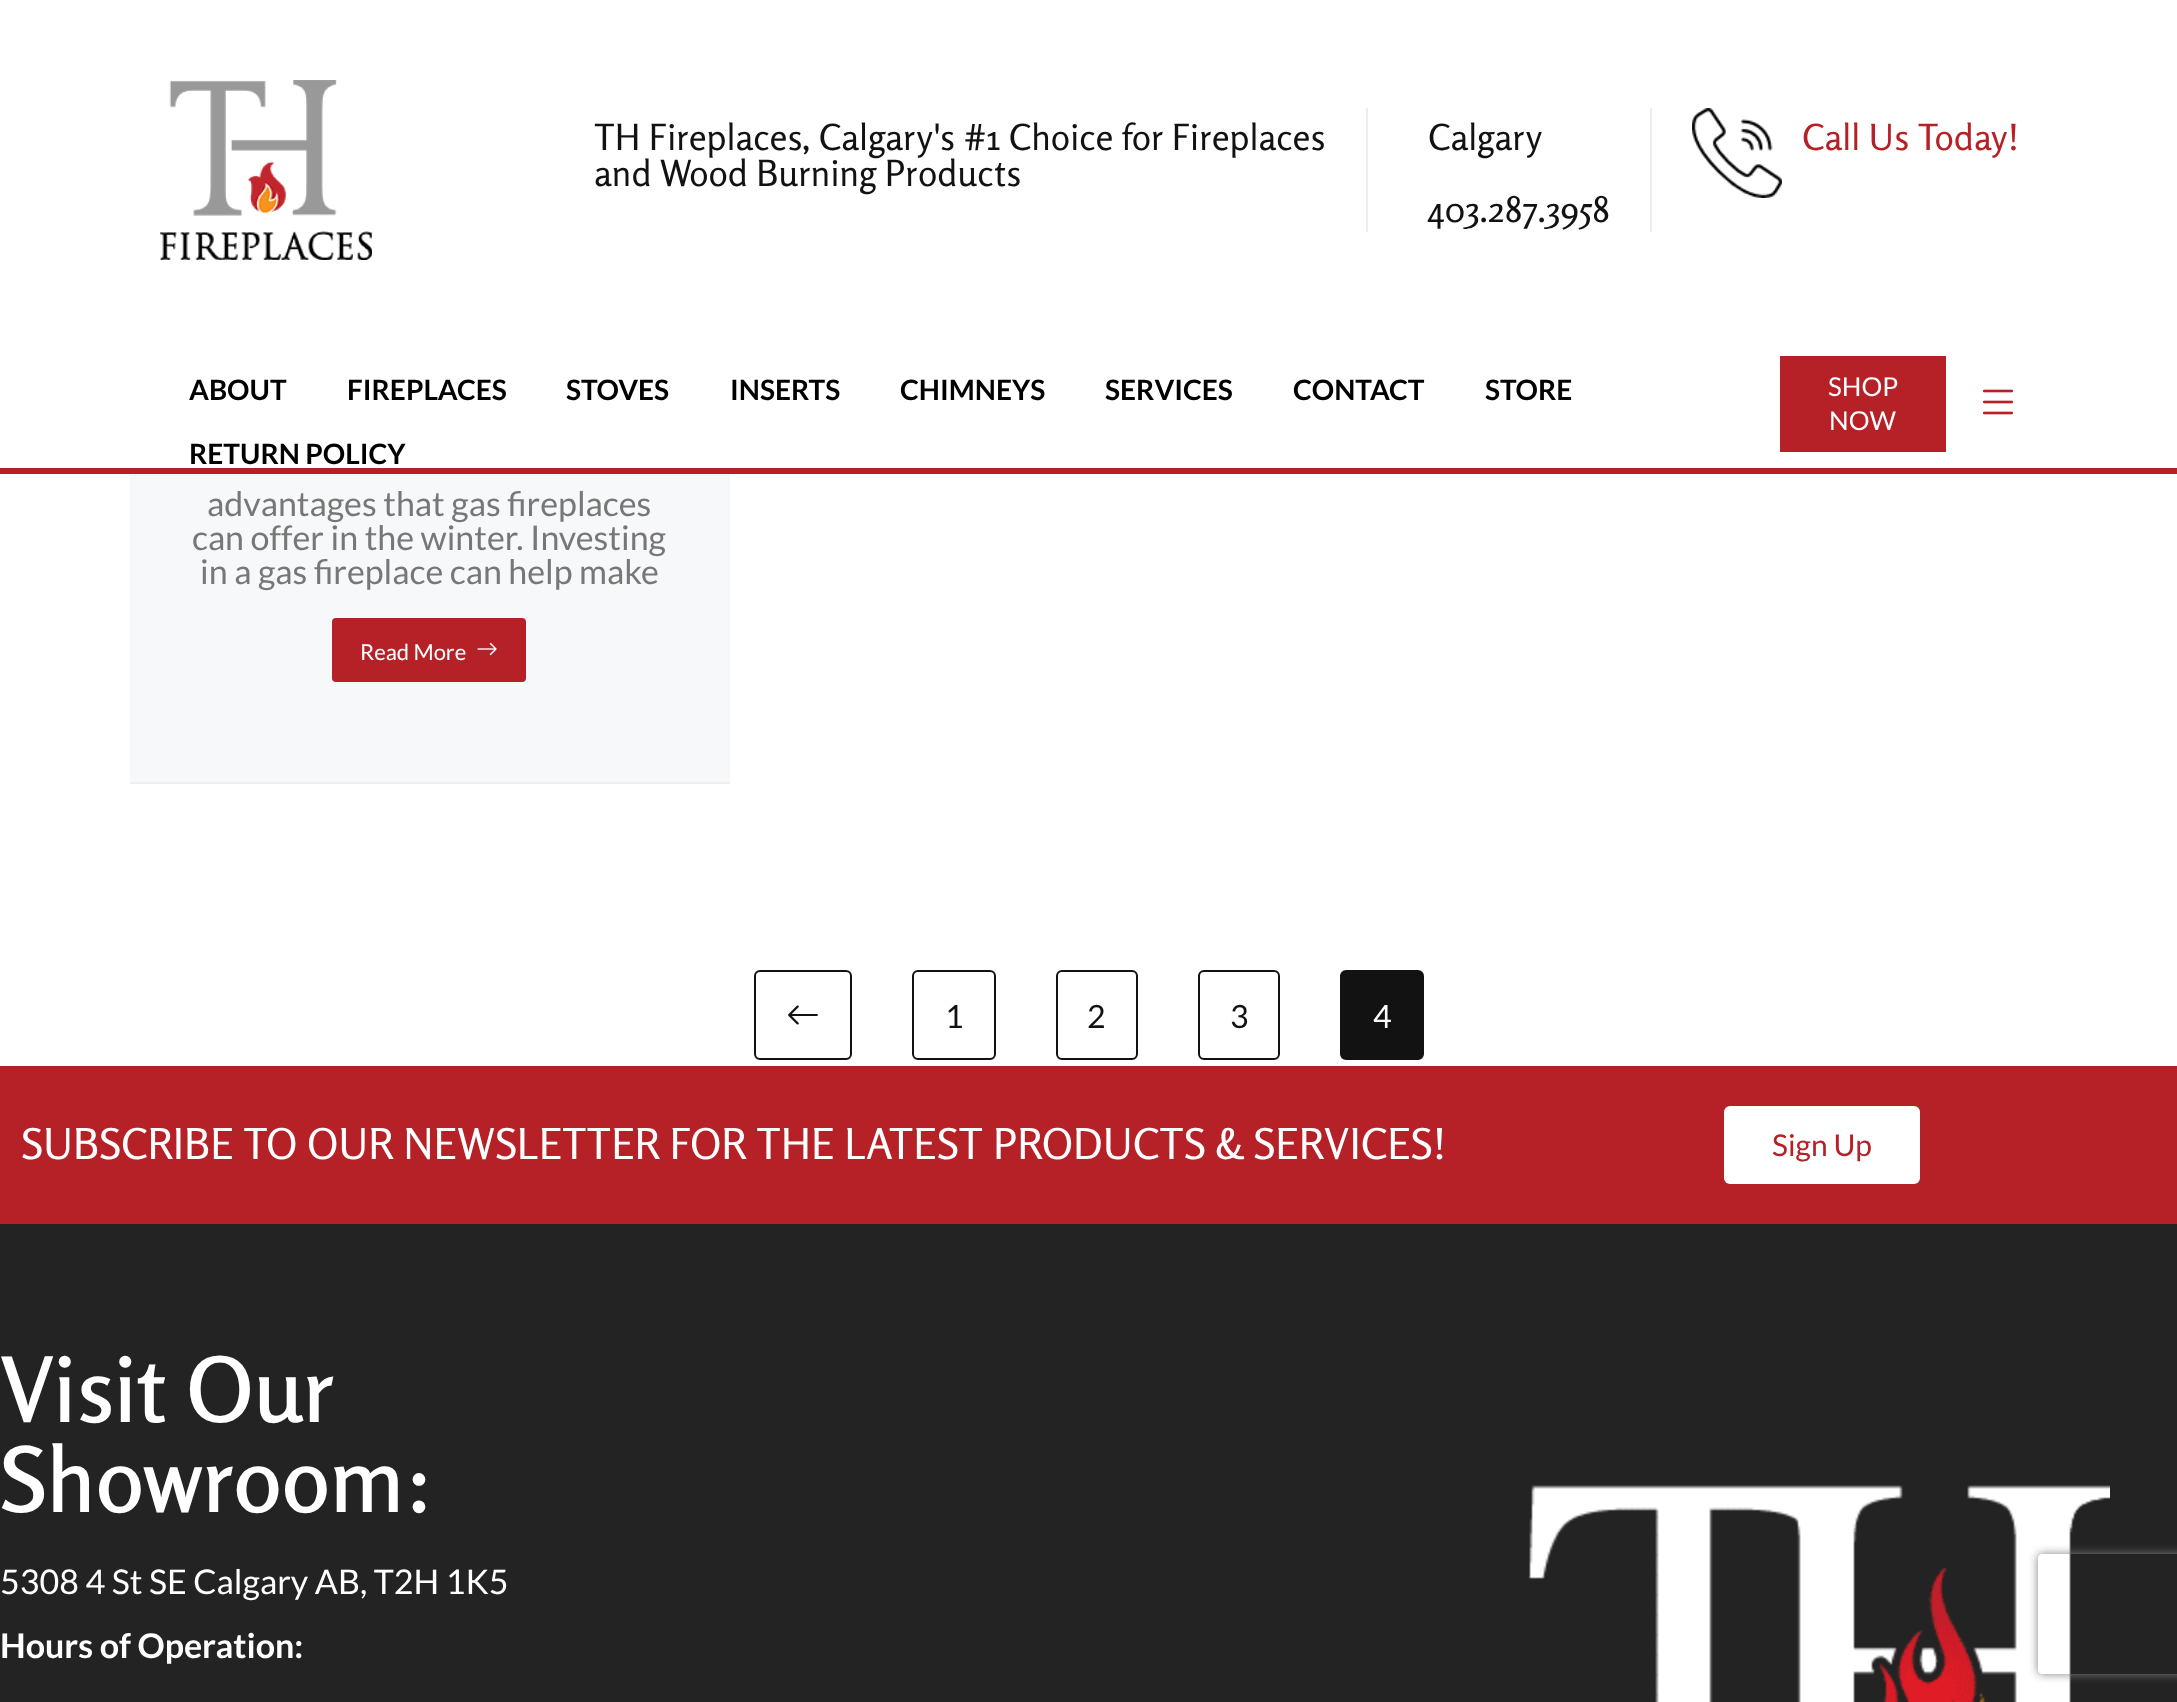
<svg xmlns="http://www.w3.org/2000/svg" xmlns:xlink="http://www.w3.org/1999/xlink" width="2177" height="1702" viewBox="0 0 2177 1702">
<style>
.cls-1{font:36px Rosario;fill:#121212}
.cls-2{font:36px Rosario;fill:#b52127}
.cls-3{font:bold 28px Lato;fill:#000000}
.cls-4{font:26px Lato;fill:#ffffff}
.cls-5{font:34px Lato;fill:#777777}
.cls-6{font:22px Lato;fill:#ffffff}
.cls-7{font:32px Lato;fill:#121212}
.cls-8{font:32px Lato;fill:#ffffff}
.cls-9{font:42.5px Rosario;fill:#ffffff}
.cls-10{font:30px Lato;fill:#b52127}
.cls-11{font:600 90px Rosario;fill:#ffffff}
.cls-12{font:34px Lato;fill:#ffffff}
.cls-13{font:bold 34px Lato;fill:#ffffff}
</style>
<defs>
<clipPath id="clip1"><path d="M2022 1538H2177V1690H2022ZM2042 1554H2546C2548 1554 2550 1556 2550 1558V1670C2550 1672 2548 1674 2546 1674H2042C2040 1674 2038 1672 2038 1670V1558C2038 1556 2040 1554 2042 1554Z" clip-rule="evenodd"/></clipPath>
</defs>
<rect width="100%" height="100%" fill="#ffffff"/>
<image xlink:href="image0.png" x="160" y="80" width="212" height="180"/>
<rect fill="#ededed" x="1366" y="108" width="2" height="124"/>
<rect fill="#ededed" x="1650" y="108" width="2" height="124"/>
<image xlink:href="image1.png" x="1692" y="108" width="90" height="90"/>
<rect fill="#b52127" x="0" y="468" width="2177" height="6"/>
<rect fill="#b52127" x="1780" y="356" width="166" height="96"/>
<image xlink:href="image2.png" x="1982" y="389" width="32" height="26"/>
<rect fill="#f7f8fa" x="130" y="474" width="600" height="308"/>
<rect fill="#efefef" x="130" y="782" width="600" height="2"/>
<rect fill="#b52127" x="332" y="618" width="194" height="64" rx="4"/>
<image xlink:href="image3.png" x="477" y="642" width="20" height="14"/>
<rect fill="none" stroke="#121212" stroke-width="2" x="755" y="971" width="96" height="88" rx="5"/>
<image xlink:href="image4.png" x="788" y="1005" width="30" height="20"/>
<rect fill="none" stroke="#121212" stroke-width="2" x="913" y="971" width="82" height="88" rx="5"/>
<rect fill="none" stroke="#121212" stroke-width="2" x="1057" y="971" width="80" height="88" rx="5"/>
<rect fill="none" stroke="#121212" stroke-width="2" x="1199" y="971" width="80" height="88" rx="5"/>
<rect fill="#121212" stroke="#121212" stroke-width="2" x="1341" y="971" width="82" height="88" rx="5"/>
<rect fill="#b52127" x="0" y="1066" width="2177" height="158"/>
<rect fill="#ffffff" x="1724" y="1106" width="196" height="78" rx="6"/>
<rect fill="#232323" x="0" y="1224" width="2177" height="478"/>
<image xlink:href="image5.png" x="1528" y="1485" width="582" height="217"/>
<g clip-path="url(#clip1)">
<rect fill="#808080" filter="blur(5px)" x="2038" y="1554" width="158" height="120" rx="4"/>
</g>
<text class="cls-1"><tspan x="594" y="150">TH Fireplaces, Calgary's #1 Choice for Fireplaces</tspan><tspan x="594" y="186">and Wood Burning Products</tspan></text>
<text class="cls-1" x="1428" y="150">Calgary</text>
<text class="cls-1" x="1428" y="222">403.287.3958</text>
<text class="cls-2" x="1802" y="150">Call Us Today!</text>
<text class="cls-3" x="189" y="400">ABOUT</text>
<text class="cls-3" x="347" y="400">FIREPLACES</text>
<text class="cls-3" x="566" y="400">STOVES</text>
<text class="cls-3" x="730" y="400">INSERTS</text>
<text class="cls-3" x="900" y="400">CHIMNEYS</text>
<text class="cls-3" x="1105" y="400">SERVICES</text>
<text class="cls-3" x="1293" y="400">CONTACT</text>
<text class="cls-3" x="1485" y="400">STORE</text>
<text class="cls-3" x="189" y="464">RETURN POLICY</text>
<text class="cls-4" x="1828" y="396">SHOP</text>
<text class="cls-4" x="1829" y="430">NOW</text>
<text class="cls-5" x="207" y="516">advantages that gas fireplaces</text>
<text class="cls-5" x="192" y="550">can offer in the winter. Investing</text>
<text class="cls-5" x="200" y="584">in a gas fireplace can help make</text>
<text class="cls-6" x="360" y="660">Read More</text>
<text class="cls-7" x="945" y="1028">1</text>
<text class="cls-7" x="1087" y="1028">2</text>
<text class="cls-7" x="1230" y="1028">3</text>
<text class="cls-8" x="1373" y="1028">4</text>
<text class="cls-9" x="21" y="1159">SUBSCRIBE TO OUR NEWSLETTER FOR THE LATEST PRODUCTS &amp; SERVICES!</text>
<text class="cls-10" x="1772" y="1156">Sign Up</text>
<text class="cls-11"><tspan x="0" y="1422">Visit Our</tspan><tspan x="0" y="1512">Showroom:</tspan></text>
<text class="cls-12" x="0" y="1594">5308 4 St SE Calgary AB, T2H 1K5</text>
<text class="cls-13" x="0" y="1658">Hours of Operation:</text>
</svg>
